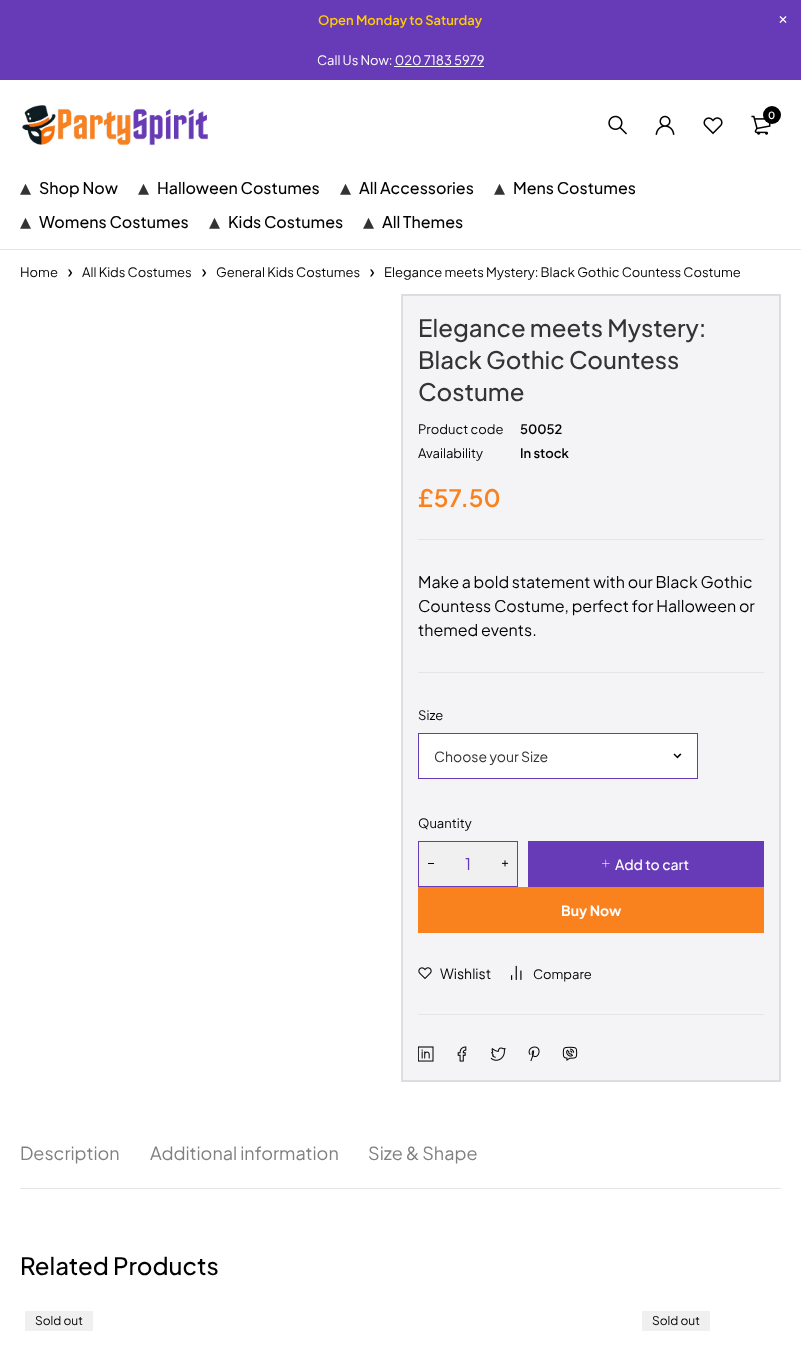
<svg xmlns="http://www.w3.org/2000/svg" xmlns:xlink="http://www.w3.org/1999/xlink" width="801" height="1345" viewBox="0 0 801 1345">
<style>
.cls-1{font:600 13px Plus Jakarta Sans;fill:#ffcc00}
.cls-2{font:13px Plus Jakarta Sans;fill:#ffffff}
.cls-3{font:600 10px Plus Jakarta Sans;fill:#ffffff}
.cls-4{font:22px DejaVu Sans;fill:#333333}
.cls-5{font:500 16px Plus Jakarta Sans;fill:#000000}
.cls-6{font:13px Plus Jakarta Sans;fill:#000000}
.cls-7{font:500 24px Plus Jakarta Sans;fill:#333333}
.cls-8{font:600 13px Plus Jakarta Sans;fill:#000000}
.cls-9{font:600 24px Plus Jakarta Sans;fill:#f9811e}
.cls-10{font:16px Plus Jakarta Sans;fill:#000000}
.cls-11{font:14px Plus Jakarta Sans;fill:#333333}
.cls-12{font:16px Plus Jakarta Sans;fill:#673ab7}
.cls-13{font:500 14px Plus Jakarta Sans;fill:#ffffff}
.cls-14{font:bold 14px Plus Jakarta Sans;fill:#ffffff}
.cls-15{font:14px Plus Jakarta Sans;fill:#000000}
.cls-16{font:18px Plus Jakarta Sans;fill:#808080}
.cls-17{font:500 24px Plus Jakarta Sans;fill:#000000}
.cls-18{font:12px Plus Jakarta Sans;fill:#000000}
</style>
<rect width="100%" height="100%" fill="#ffffff"/>
<rect fill="#673ab7" x="0" y="0" width="801" height="80"/>
<image xlink:href="image0.png" x="779" y="16" width="8" height="7"/>
<rect fill="#ffffff" x="394" y="66" width="90" height="1"/>
<image xlink:href="image1.png" x="22" y="105" width="186" height="41"/>
<image xlink:href="image2.png" x="608" y="115" width="19" height="20"/>
<image xlink:href="image3.png" x="655" y="115" width="20" height="20"/>
<image xlink:href="image4.png" x="703" y="117" width="20" height="18"/>
<image xlink:href="image5.png" x="751" y="115" width="20" height="20"/>
<circle fill="#000000" cx="772" cy="115" r="9"/>
<rect fill="#e5e5e5" x="0" y="249" width="801" height="1"/>
<image xlink:href="image6.png" x="68" y="269" width="5" height="8"/>
<image xlink:href="image6.png" x="202" y="269" width="5" height="8"/>
<image xlink:href="image6.png" x="370" y="269" width="5" height="8"/>
<rect fill="#f4f4f7" stroke="#dddddd" stroke-width="2" x="402" y="295" width="378" height="786"/>
<rect fill="#e5e5e5" x="418" y="539" width="346" height="1"/>
<rect fill="#e5e5e5" x="418" y="672" width="346" height="1"/>
<rect fill="#ffffff" x="419" y="734" width="278" height="44"/>
<image xlink:href="image7.png" x="673" y="753" width="9" height="6"/>
<rect fill="none" stroke="#673ab7" x="418.5" y="733.5" width="279" height="45"/>
<rect fill="#f0f0f0" stroke="#673ab7" x="418.5" y="841.5" width="99" height="45"/>
<rect fill="#000000" x="428" y="863" width="6" height="1"/>
<image xlink:href="image8.png" x="502" y="860" width="6" height="7"/>
<rect fill="#673ab7" x="528" y="841" width="236" height="46"/>
<image xlink:href="image9.png" x="602" y="859" width="8" height="9"/>
<rect fill="#f9811e" x="418" y="887" width="346" height="46"/>
<image xlink:href="image10.png" x="418" y="967" width="14" height="12"/>
<image xlink:href="image11.png" x="511" y="965" width="11" height="15"/>
<rect fill="#e5e5e5" x="418" y="1014" width="346" height="1"/>
<image xlink:href="image12.png" x="418" y="1046" width="16" height="16"/>
<image xlink:href="image13.png" x="457" y="1046" width="10" height="16"/>
<image xlink:href="image14.png" x="490" y="1047" width="16" height="14"/>
<image xlink:href="image15.png" x="528" y="1046" width="12" height="16"/>
<image xlink:href="image16.png" x="562" y="1046" width="16" height="15"/>
<rect fill="#e5e5e5" x="20" y="1188" width="761" height="1"/>
<rect fill="#f0f0f0" x="25" y="1311" width="68" height="20"/>
<rect fill="#f0f0f0" x="642" y="1311" width="68" height="20"/>
<text class="cls-1" x="318" y="25">Open Monday to Saturday</text>
<text class="cls-2" x="317" y="65">Call Us Now: 020 7183 5979</text>
<text class="cls-3" x="768" y="119">0</text>
<text class="cls-4" x="20" y="195">▴</text>
<text class="cls-5" x="39" y="194">Shop Now</text>
<text class="cls-4" x="138" y="195">▴</text>
<text class="cls-5" x="157" y="194">Halloween Costumes</text>
<text class="cls-4" x="340" y="195">▴</text>
<text class="cls-5" x="359" y="194">All Accessories</text>
<text class="cls-4" x="494" y="195">▴</text>
<text class="cls-5" x="513" y="194">Mens Costumes</text>
<text class="cls-4" x="20" y="229">▴</text>
<text class="cls-5" x="39" y="228">Womens Costumes</text>
<text class="cls-4" x="209" y="229">▴</text>
<text class="cls-5" x="228" y="228">Kids Costumes</text>
<text class="cls-4" x="363" y="229">▴</text>
<text class="cls-5" x="382" y="228">All Themes</text>
<text class="cls-6" x="20" y="277">Home</text>
<text class="cls-6" x="82" y="277">All Kids Costumes</text>
<text class="cls-6" x="216" y="277">General Kids Costumes</text>
<text class="cls-6" x="384" y="277">Elegance meets Mystery: Black Gothic Countess Costume</text>
<text class="cls-7"><tspan x="418" y="337">Elegance meets Mystery:</tspan><tspan x="418" y="369">Black Gothic Countess</tspan><tspan x="418" y="401">Costume</tspan></text>
<text class="cls-6" x="418" y="434">Product code</text>
<text class="cls-8" x="520" y="434">50052</text>
<text class="cls-6" x="418" y="458">Availability</text>
<text class="cls-8" x="520" y="458">In stock</text>
<text class="cls-9" x="418" y="507">£57.50</text>
<text class="cls-10"><tspan x="418" y="588">Make a bold statement with our Black Gothic</tspan><tspan x="418" y="612">Countess Costume, perfect for Halloween or</tspan><tspan x="418" y="636">themed events.</tspan></text>
<text class="cls-6" x="418" y="720">Size</text>
<text class="cls-11" x="434" y="762">Choose your Size</text>
<text class="cls-6" x="418" y="828">Quantity</text>
<text class="cls-12" x="465" y="870">1</text>
<text class="cls-13" x="615" y="870">Add to cart</text>
<text class="cls-14" x="561" y="916">Buy Now</text>
<text class="cls-15" x="440" y="979">Wishlist</text>
<text class="cls-6" x="533" y="979">Compare</text>
<text class="cls-16" x="20" y="1160">Description</text>
<text class="cls-16" x="150" y="1160">Additional information</text>
<text class="cls-16" x="368" y="1160">Size &amp; Shape</text>
<text class="cls-17" x="20" y="1275">Related Products</text>
<text class="cls-18" x="35" y="1325">Sold out</text>
<text class="cls-18" x="652" y="1325">Sold out</text>
</svg>
